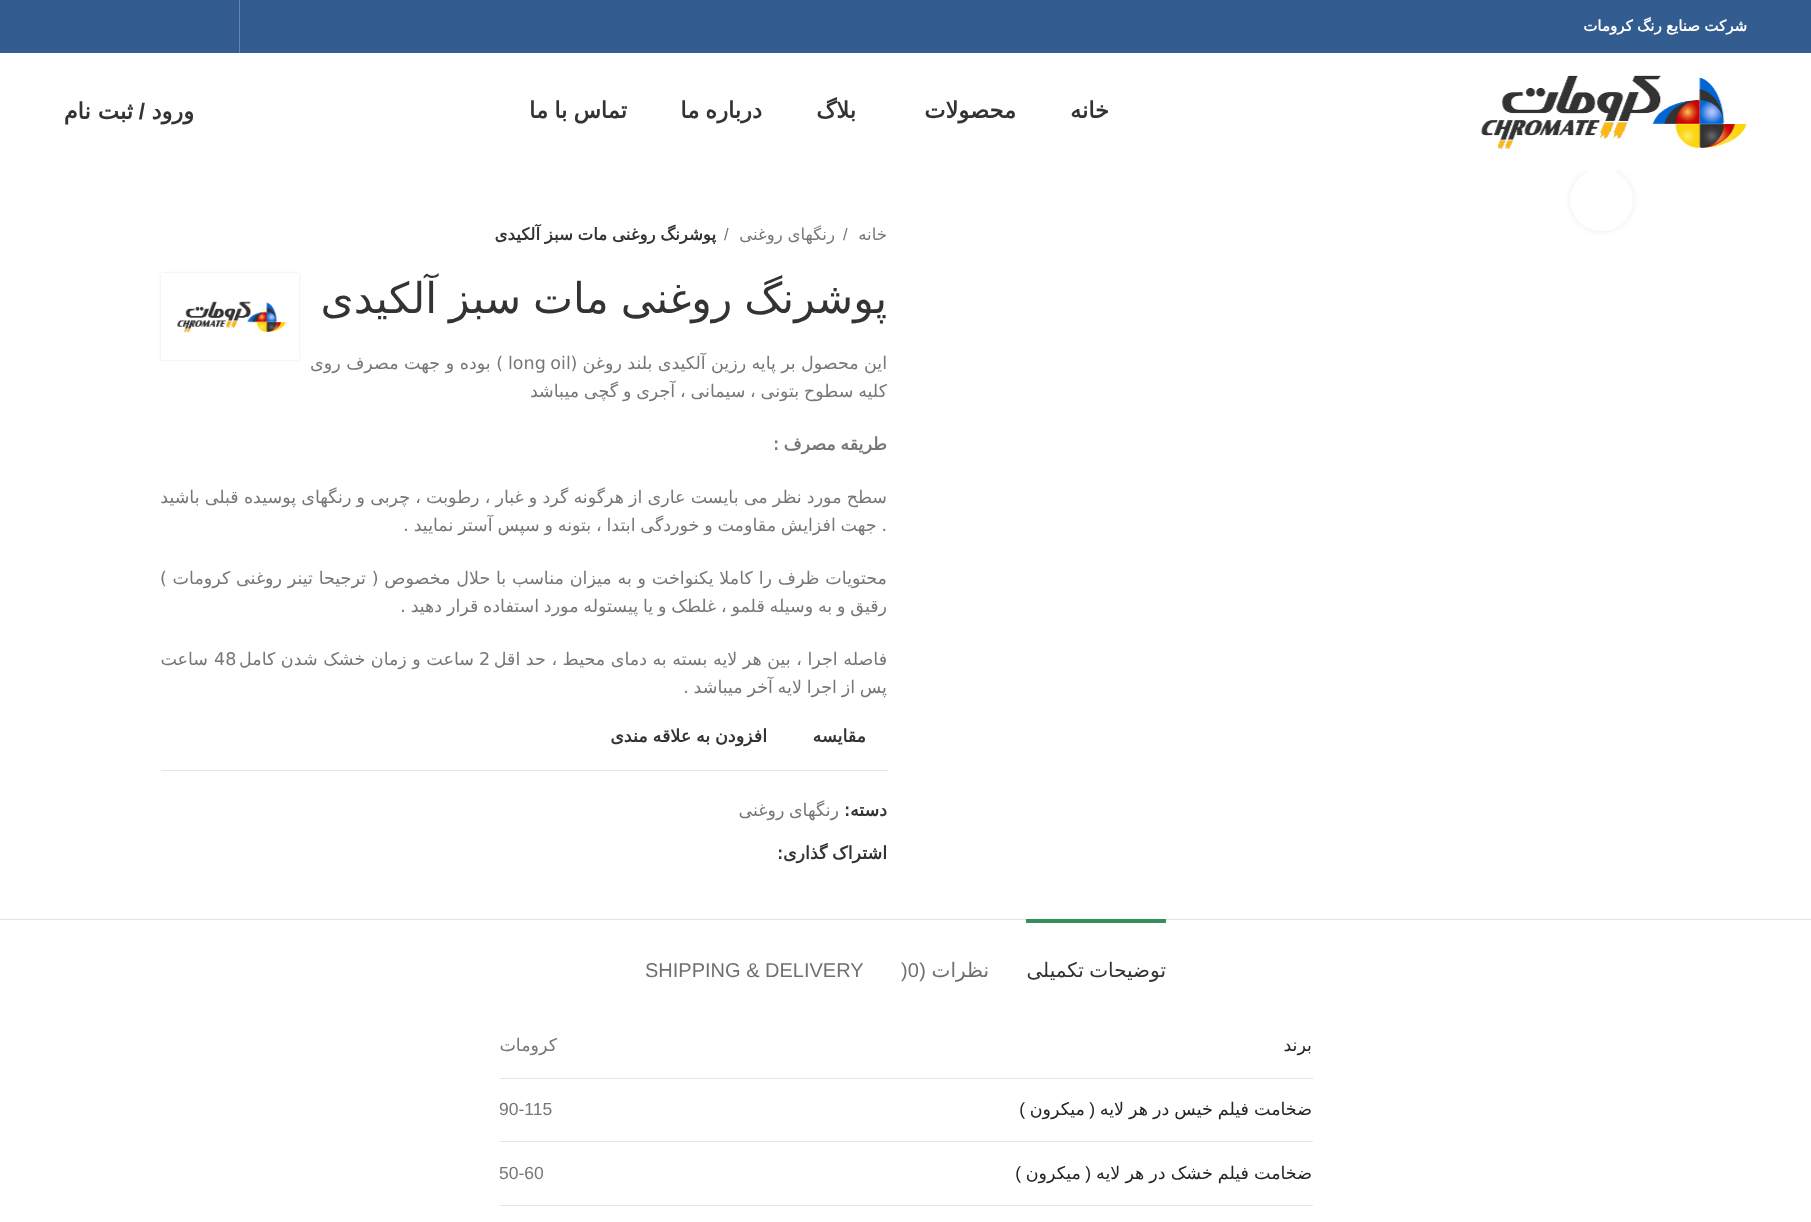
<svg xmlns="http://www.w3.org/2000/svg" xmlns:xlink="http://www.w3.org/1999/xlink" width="1811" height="1222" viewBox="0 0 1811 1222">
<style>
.cls-1{font:bold 15px DejaVu Sans;direction:rtl;fill:#ffffff}
.cls-2{font:bold 22.5px DejaVu Sans;direction:rtl;fill:#333333}
.cls-3{font:bold 22.5px Liberation Sans;direction:rtl;fill:#333333}
.cls-4{font:16.6px DejaVu Sans;direction:rtl;fill:#777777}
.cls-5{font:16.6px Liberation Sans;fill:#777777}
.cls-6{font:bold 16.6px DejaVu Sans;direction:rtl;fill:#333333}
.cls-7{font:42.5px DejaVu Sans;direction:rtl;fill:#333333}
.cls-8{font:17.5px DejaVu Sans;direction:rtl;fill:#777777}
.cls-9{font:17.5px DejaVu Sans;fill:#777777}
.cls-10{font:bold 17.5px DejaVu Sans;direction:rtl;fill:#777777}
.cls-11{font:bold 17.5px DejaVu Sans;direction:rtl;fill:#333333}
.cls-12{font:20px DejaVu Sans;direction:rtl;fill:#333333}
.cls-13{font:20px DejaVu Sans;direction:rtl;fill:#707070}
.cls-14{font:20px Liberation Sans;direction:rtl;fill:#707070}
.cls-15{font:20px Liberation Sans;fill:#707070}
.cls-16{font:17.5px DejaVu Sans;direction:rtl;fill:#242424}
.cls-17{font:17.5px Liberation Sans;direction:rtl;fill:#242424}
.cls-18{font:17.5px Liberation Sans;fill:#777777}
</style>
<rect width="100%" height="100%" fill="#ffffff"/>
<rect fill="#335c90" x="0" y="0" width="1811" height="53"/>
<rect fill="#6685ac" x="239" y="0" width="1" height="53"/>
<rect fill="#000000" fill-opacity="0.08" filter="blur(3px)" x="1570" y="169" width="63" height="62" rx="31"/>
<rect fill="#ffffff" x="1570" y="169" width="63" height="62" rx="31"/>
<rect fill="#ffffff" x="1583" y="166" width="37" height="5"/>
<image xlink:href="image0.png" x="1481" y="75" width="266" height="74"/>
<rect fill="#000000" fill-opacity="0.12" filter="blur(1px)" x="161" y="273" width="138" height="87"/>
<rect fill="#ffffff" x="161" y="273" width="138" height="87"/>
<image xlink:href="image1.png" x="177" y="301" width="110" height="32"/>
<rect fill="#e4e4e4" x="161" y="770" width="727" height="1"/>
<rect fill="#e4e4e4" x="0" y="919" width="1811" height="1"/>
<rect fill="#339059" x="1026" y="919" width="140" height="4"/>
<rect fill="#e4e4e4" x="500" y="1078" width="813" height="1"/>
<rect fill="#e4e4e4" x="500" y="1141" width="813" height="1"/>
<rect fill="#e4e4e4" x="500" y="1205" width="813" height="1"/>
<text class="cls-1" x="1747" y="31" word-spacing="-0.5">شرکت صنایع رنگ کرومات</text>
<text class="cls-2" x="1109" y="118">خانه</text>
<text class="cls-2" x="1016" y="118">محصولات</text>
<text class="cls-2" x="856" y="118">بلاگ</text>
<text class="cls-2" x="762" y="118" word-spacing="-1">درباره ما</text>
<text class="cls-2" x="627" y="118" word-spacing="-1">تماس با ما</text>
<text class="cls-2" x="194" y="119">ورود</text>
<text class="cls-3" x="145" y="119">/</text>
<text class="cls-2" x="133" y="119">ثبت نام</text>
<text class="cls-4" x="887" y="240">خانه</text>
<text class="cls-5" x="843" y="240">/</text>
<text class="cls-4" x="835" y="240" word-spacing="-0.5">رنگهای روغنی</text>
<text class="cls-5" x="724" y="240">/</text>
<text class="cls-6" x="716" y="240" word-spacing="-0.5">پوشرنگ روغنی مات سبز آلکیدی</text>
<text class="cls-7" x="887" y="313" word-spacing="-1.5">پوشرنگ روغنی مات سبز آلکیدی</text>
<text class="cls-8" x="887" y="369" word-spacing="-0.25">این محصول بر پایه رزین آلکیدی بلند روغن (</text>
<text class="cls-9" x="508" y="369" word-spacing="-1">long oil</text>
<text class="cls-8" x="503" y="369">) بوده و جهت مصرف روی</text>
<text class="cls-8" x="887" y="397" word-spacing="-0.75">کلیه سطوح بتونی ، سیمانی ، آجری و گچی میباشد</text>
<text class="cls-10" x="887" y="450" word-spacing="-1">طریقه مصرف :</text>
<text class="cls-8"><tspan x="887" y="503" word-spacing="-0.4">سطح مورد نظر می بایست عاری از هرگونه گرد و غبار ، رطوبت ، چربی و رنگهای پوسیده قبلی باشید</tspan><tspan x="887" y="531" word-spacing="-0.75">. جهت افزایش مقاومت و خوردگی ابتدا ، بتونه و سپس آستر نمایید .</tspan></text>
<text class="cls-8"><tspan x="887" y="584" word-spacing="0.25">محتویات ظرف را کاملا یکنواخت و به میزان مناسب با حلال مخصوص ( ترجیحا تینر روغنی کرومات )</tspan><tspan x="887" y="612" word-spacing="-0.75">رقیق و به وسیله قلمو ، غلطک و یا پیستوله مورد استفاده قرار دهید .</tspan></text>
<text class="cls-8" x="887" y="665">فاصله اجرا ، بین هر لایه بسته به دمای محیط ، حد اقل</text>
<text class="cls-9" x="479" y="665">2</text>
<text class="cls-8" x="474" y="665">ساعت و زمان خشک شدن کامل</text>
<text class="cls-9" x="214" y="665">48</text>
<text class="cls-8" x="208" y="665">ساعت</text>
<text class="cls-8" x="887" y="693" word-spacing="-0.75">پس از اجرا لایه آخر میباشد .</text>
<text class="cls-11" x="866" y="742">مقايسه</text>
<text class="cls-11" x="767" y="742" word-spacing="-0.75">افزودن به علاقه مندی</text>
<text class="cls-11" x="887" y="816">دسته:</text>
<text class="cls-8" x="839" y="816" word-spacing="-1">رنگهای روغنی</text>
<text class="cls-11" x="887" y="859" word-spacing="-1">اشتراک گذاری:</text>
<text class="cls-12" x="1166" y="977" word-spacing="-1">توضیحات تکمیلی</text>
<text class="cls-13" x="989" y="977">نظرات</text>
<text class="cls-14" x="926" y="977">(</text>
<text class="cls-15" x="901" y="977">)0</text>
<text class="cls-15" x="645" y="977">SHIPPING &amp; DELIVERY</text>
<text class="cls-16" x="1312" y="1051">برند</text>
<text class="cls-8" x="557" y="1051">کرومات</text>
<text class="cls-16" x="1312" y="1115" word-spacing="-0.5">ضخامت فیلم خیس در هر لایه</text>
<text class="cls-17" x="1095" y="1115">(</text>
<text class="cls-16" x="1085" y="1115">میکرون</text>
<text class="cls-17" x="1025" y="1115">)</text>
<text class="cls-18" x="499" y="1115">90-115</text>
<text class="cls-16" x="1312" y="1179" word-spacing="-0.5">ضخامت فیلم خشک در هر لایه</text>
<text class="cls-17" x="1091" y="1179">(</text>
<text class="cls-16" x="1081" y="1179">میکرون</text>
<text class="cls-17" x="1021" y="1179">)</text>
<text class="cls-18" x="499" y="1179">50-60</text>
</svg>
